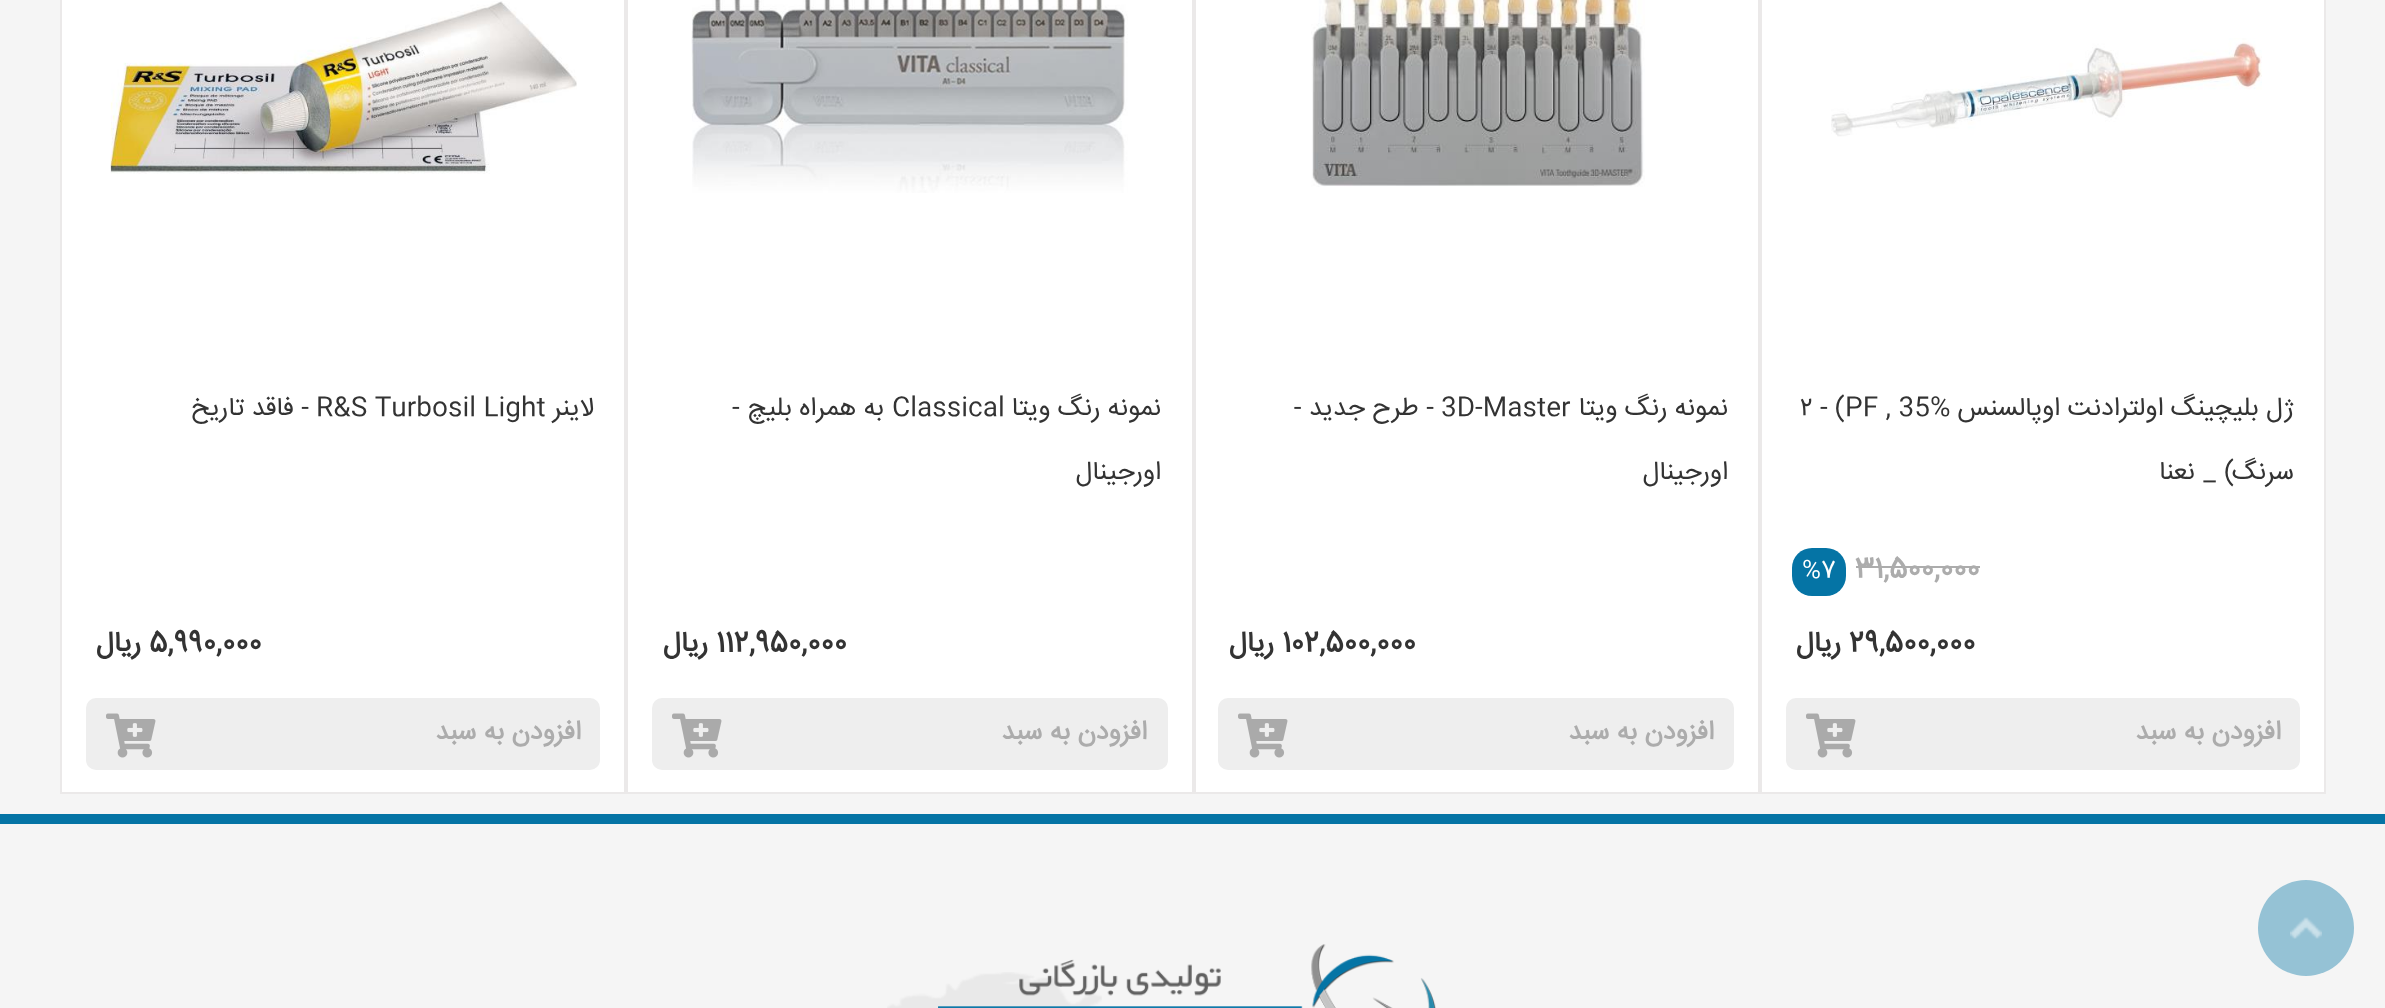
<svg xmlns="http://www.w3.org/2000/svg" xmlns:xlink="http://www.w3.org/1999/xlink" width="2385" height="1008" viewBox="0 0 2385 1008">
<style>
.cls-1{font:26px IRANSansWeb;direction:rtl;fill:#333333}
.cls-2{font:26px IRANSansWeb;fill:#333333}
.cls-3{font:bold 28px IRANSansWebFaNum;fill:#acacac}
.cls-4{font:24px IRANSansWebFaNum;fill:#ffffff}
.cls-5{font:bold 28px IRANSansWebFaNum;fill:#333333}
.cls-6{font:bold 28px IRANSansWebFaNum;direction:rtl;fill:#333333}
.cls-7{font:bold 26px IRANSansWeb;direction:rtl;fill:#acacac}
</style>
<rect width="100%" height="100%" fill="#f5f5f5"/>
<rect fill="#ffffff" stroke="#ebe9e9" stroke-width="2" x="1761" y="-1" width="564" height="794"/>
<image xlink:href="image0.png" x="1831" y="38" width="431" height="99"/>
<rect fill="#acacac" x="1856" y="566" width="124" height="2"/>
<rect fill="#0574a5" x="1792" y="548" width="54" height="48" rx="20"/>
<rect fill="#eeeeee" x="1786" y="698" width="514" height="72" rx="10"/>
<image xlink:href="image1.png" x="1806" y="713" width="50" height="45"/>
<rect fill="#ffffff" stroke="#ebe9e9" stroke-width="2" x="1195" y="-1" width="564" height="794"/>
<image xlink:href="image2.png" x="1311" y="0" width="334" height="187"/>
<rect fill="#eeeeee" x="1218" y="698" width="516" height="72" rx="10"/>
<image xlink:href="image1.png" x="1238" y="713" width="50" height="45"/>
<rect fill="#ffffff" stroke="#ebe9e9" stroke-width="2" x="627" y="-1" width="566" height="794"/>
<image xlink:href="image3.png" x="691" y="0" width="437" height="193"/>
<rect fill="#eeeeee" x="652" y="698" width="516" height="72" rx="10"/>
<image xlink:href="image1.png" x="672" y="713" width="50" height="45"/>
<rect fill="#ffffff" stroke="#ebe9e9" stroke-width="2" x="61" y="-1" width="564" height="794"/>
<image xlink:href="image4.png" x="110" y="1" width="467" height="173"/>
<rect fill="#eeeeee" x="86" y="698" width="514" height="72" rx="10"/>
<image xlink:href="image1.png" x="106" y="713" width="50" height="45"/>
<image xlink:href="image5.png" x="887" y="972" width="215" height="36"/>
<rect fill="#0574a5" x="0" y="814" width="2385" height="10"/>
<image xlink:href="image6.png" x="938" y="944" width="498" height="64"/>
<circle fill="#95c2d5" cx="2306" cy="928" r="48"/>
<image xlink:href="image7.png" x="2290" y="917" width="32" height="22"/>
<text class="cls-1" x="2294" y="415">ژل بلیچینگ اولترادنت اوپالسنس</text>
<text class="cls-2" x="1800" y="415">۲ - (PF , 35%</text>
<text class="cls-1" x="2294" y="479" word-spacing="1">سرنگ) _ نعنا</text>
<text class="cls-3" x="1855" y="577">31,500,000</text>
<text class="cls-4" x="1802" y="577">%7</text>
<text class="cls-5" x="1849" y="651">29,500,000</text>
<text class="cls-6" x="1841" y="651">ریال</text>
<text class="cls-7" x="2281" y="739">افزودن به سبد</text>
<text class="cls-1" x="1728" y="415">نمونه رنگ ویتا</text>
<text class="cls-2" x="1441" y="415">3D-Master</text>
<text class="cls-1" x="1434" y="415">- طرح جدید -</text>
<text class="cls-1" x="1728" y="479">اورجینال</text>
<text class="cls-5" x="1282" y="651">102,500,000</text>
<text class="cls-6" x="1274" y="651">ریال</text>
<text class="cls-7" x="1714" y="739">افزودن به سبد</text>
<text class="cls-1" x="1161" y="415">نمونه رنگ ویتا</text>
<text class="cls-2" x="892" y="415">Classical</text>
<text class="cls-1" x="884" y="415">به همراه بلیچ -</text>
<text class="cls-1" x="1161" y="479">اورجینال</text>
<text class="cls-5" x="716" y="651">112,950,000</text>
<text class="cls-6" x="708" y="651">ریال</text>
<text class="cls-7" x="1147" y="739">افزودن به سبد</text>
<text class="cls-1" x="594" y="415">لاینر</text>
<text class="cls-2" x="316" y="415">R&amp;S Turbosil Light</text>
<text class="cls-1" x="309" y="415">- فاقد تاریخ</text>
<text class="cls-5" x="149" y="651">5,990,000</text>
<text class="cls-6" x="141" y="651">ریال</text>
<text class="cls-7" x="581" y="739">افزودن به سبد</text>
</svg>
